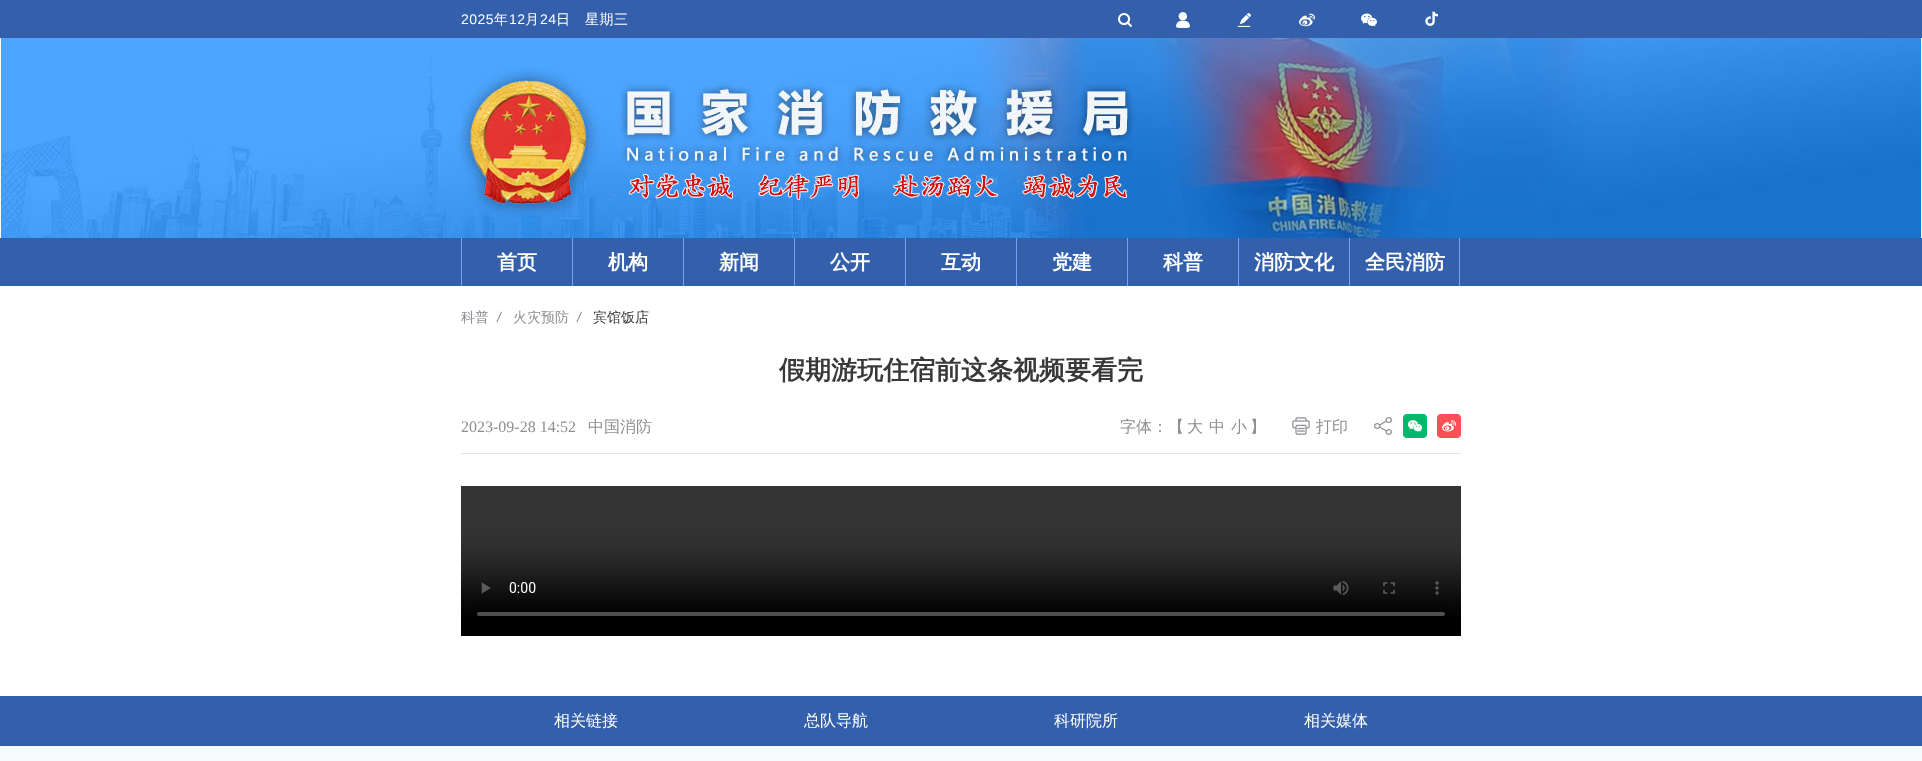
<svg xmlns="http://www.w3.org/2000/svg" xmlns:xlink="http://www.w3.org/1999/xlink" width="1922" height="761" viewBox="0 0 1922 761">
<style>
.cls-1{font:14px Liberation Sans;letter-spacing:0.5px;fill:#ffffff}
.cls-2{font:500 14px WenQuanYi Zen Hei;letter-spacing:0.5px;fill:#ffffff}
.cls-3{font:bold 20px WenQuanYi Zen Hei;fill:#ffffff}
.cls-4{font:500 14px WenQuanYi Zen Hei;fill:#8e8e93}
.cls-5{font:italic 14px Liberation Sans;fill:#8e8e93}
.cls-6{font:500 14px WenQuanYi Zen Hei;fill:#383838}
.cls-7{font:bold 26px WenQuanYi Zen Hei;fill:#383838}
.cls-8{font:16px Liberation Serif;fill:#8e8e93}
.cls-9{font:500 16px WenQuanYi Zen Hei;fill:#8e8e93}
.cls-10{font:500 16px WenQuanYi Zen Hei;fill:#ffffff}
</style>
<defs>
<linearGradient id="g1" gradientUnits="userSpaceOnUse" x1="961" y1="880" x2="961" y2="696"><stop offset="0" stop-color="#ffffff"/><stop offset="1" stop-color="#f3f8fa"/></linearGradient>
</defs>
<rect width="100%" height="100%" fill="#ffffff"/>
<rect fill="#3460ab" x="0" y="0" width="1922" height="38"/>
<image xlink:href="image0.png" x="1118" y="13" width="14" height="14"/>
<image xlink:href="image1.png" x="1176" y="12" width="14" height="16"/>
<image xlink:href="image2.png" x="1237" y="13" width="14" height="14"/>
<image xlink:href="image3.png" x="1299" y="13" width="16" height="14"/>
<image xlink:href="image4.png" x="1361" y="13" width="16" height="14"/>
<image xlink:href="image5.png" x="1425" y="11" width="13" height="15"/>
<image xlink:href="image6.png" x="1" y="38" width="1920" height="200"/>
<rect fill="#3460ab" x="0" y="238" width="1922" height="48"/>
<rect fill="#7b9eff" x="461" y="238" width="1" height="48"/>
<rect fill="#7b9eff" x="572" y="238" width="1" height="48"/>
<rect fill="#7b9eff" x="683" y="238" width="1" height="48"/>
<rect fill="#7b9eff" x="794" y="238" width="1" height="48"/>
<rect fill="#7b9eff" x="905" y="238" width="1" height="48"/>
<rect fill="#7b9eff" x="1016" y="238" width="1" height="48"/>
<rect fill="#7b9eff" x="1127" y="238" width="1" height="48"/>
<rect fill="#7b9eff" x="1238" y="238" width="1" height="48"/>
<rect fill="#7b9eff" x="1459" y="238" width="1" height="48"/>
<rect fill="#7b9eff" x="1349" y="238" width="1" height="48"/>
<rect fill="#e5e5e5" x="461" y="453" width="1000" height="1"/>
<image xlink:href="image7.png" x="1292" y="417" width="18" height="18"/>
<image xlink:href="image8.png" x="1374" y="417" width="18" height="18"/>
<image xlink:href="image9.png" x="1403" y="414" width="24" height="24"/>
<image xlink:href="image10.png" x="1437" y="414" width="24" height="24"/>
<image xlink:href="image11.png" x="461" y="486" width="1000" height="130"/>
<rect fill="#000000" x="461" y="616" width="1000" height="20"/>
<rect fill="url(#g1)" x="0" y="746" width="1922" height="15"/>
<rect fill="#3460ab" x="0" y="696" width="1922" height="50"/>
<text class="cls-1" x="461" y="24">2025</text>
<text class="cls-2" x="494" y="24">年</text>
<text class="cls-1" x="509" y="24">12</text>
<text class="cls-2" x="525" y="24">月</text>
<text class="cls-1" x="540" y="24">24</text>
<text class="cls-2" x="556" y="24">日　星期三</text>
<text class="cls-3" x="497" y="269">首页</text>
<text class="cls-3" x="608" y="269">机构</text>
<text class="cls-3" x="719" y="269">新闻</text>
<text class="cls-3" x="830" y="269">公开</text>
<text class="cls-3" x="941" y="269">互动</text>
<text class="cls-3" x="1052" y="269">党建</text>
<text class="cls-3" x="1163" y="269">科普</text>
<text class="cls-3" x="1254" y="269">消防文化</text>
<text class="cls-3" x="1365" y="269">全民消防</text>
<text class="cls-4" x="461" y="322">科普</text>
<text class="cls-5" x="497" y="322">/</text>
<text class="cls-4" x="513" y="322">火灾预防</text>
<text class="cls-5" x="577" y="322">/</text>
<text class="cls-6" x="593" y="322">宾馆饭店</text>
<text class="cls-7" x="779" y="379">假期游玩住宿前这条视频要看完</text>
<text class="cls-8" x="461" y="432">2023-09-28 14:52</text>
<text class="cls-9" x="588" y="432">中国消防</text>
<text class="cls-9" x="1120" y="432">字体：【</text>
<text class="cls-9" x="1187" y="432">大</text>
<text class="cls-9" x="1209" y="432">中</text>
<text class="cls-9" x="1231" y="432">小</text>
<text class="cls-9" x="1250" y="432">】</text>
<text class="cls-9" x="1316" y="432">打印</text>
<text class="cls-10" x="554" y="726">相关链接</text>
<text class="cls-10" x="804" y="726">总队导航</text>
<text class="cls-10" x="1054" y="726">科研院所</text>
<text class="cls-10" x="1304" y="726">相关媒体</text>
</svg>
